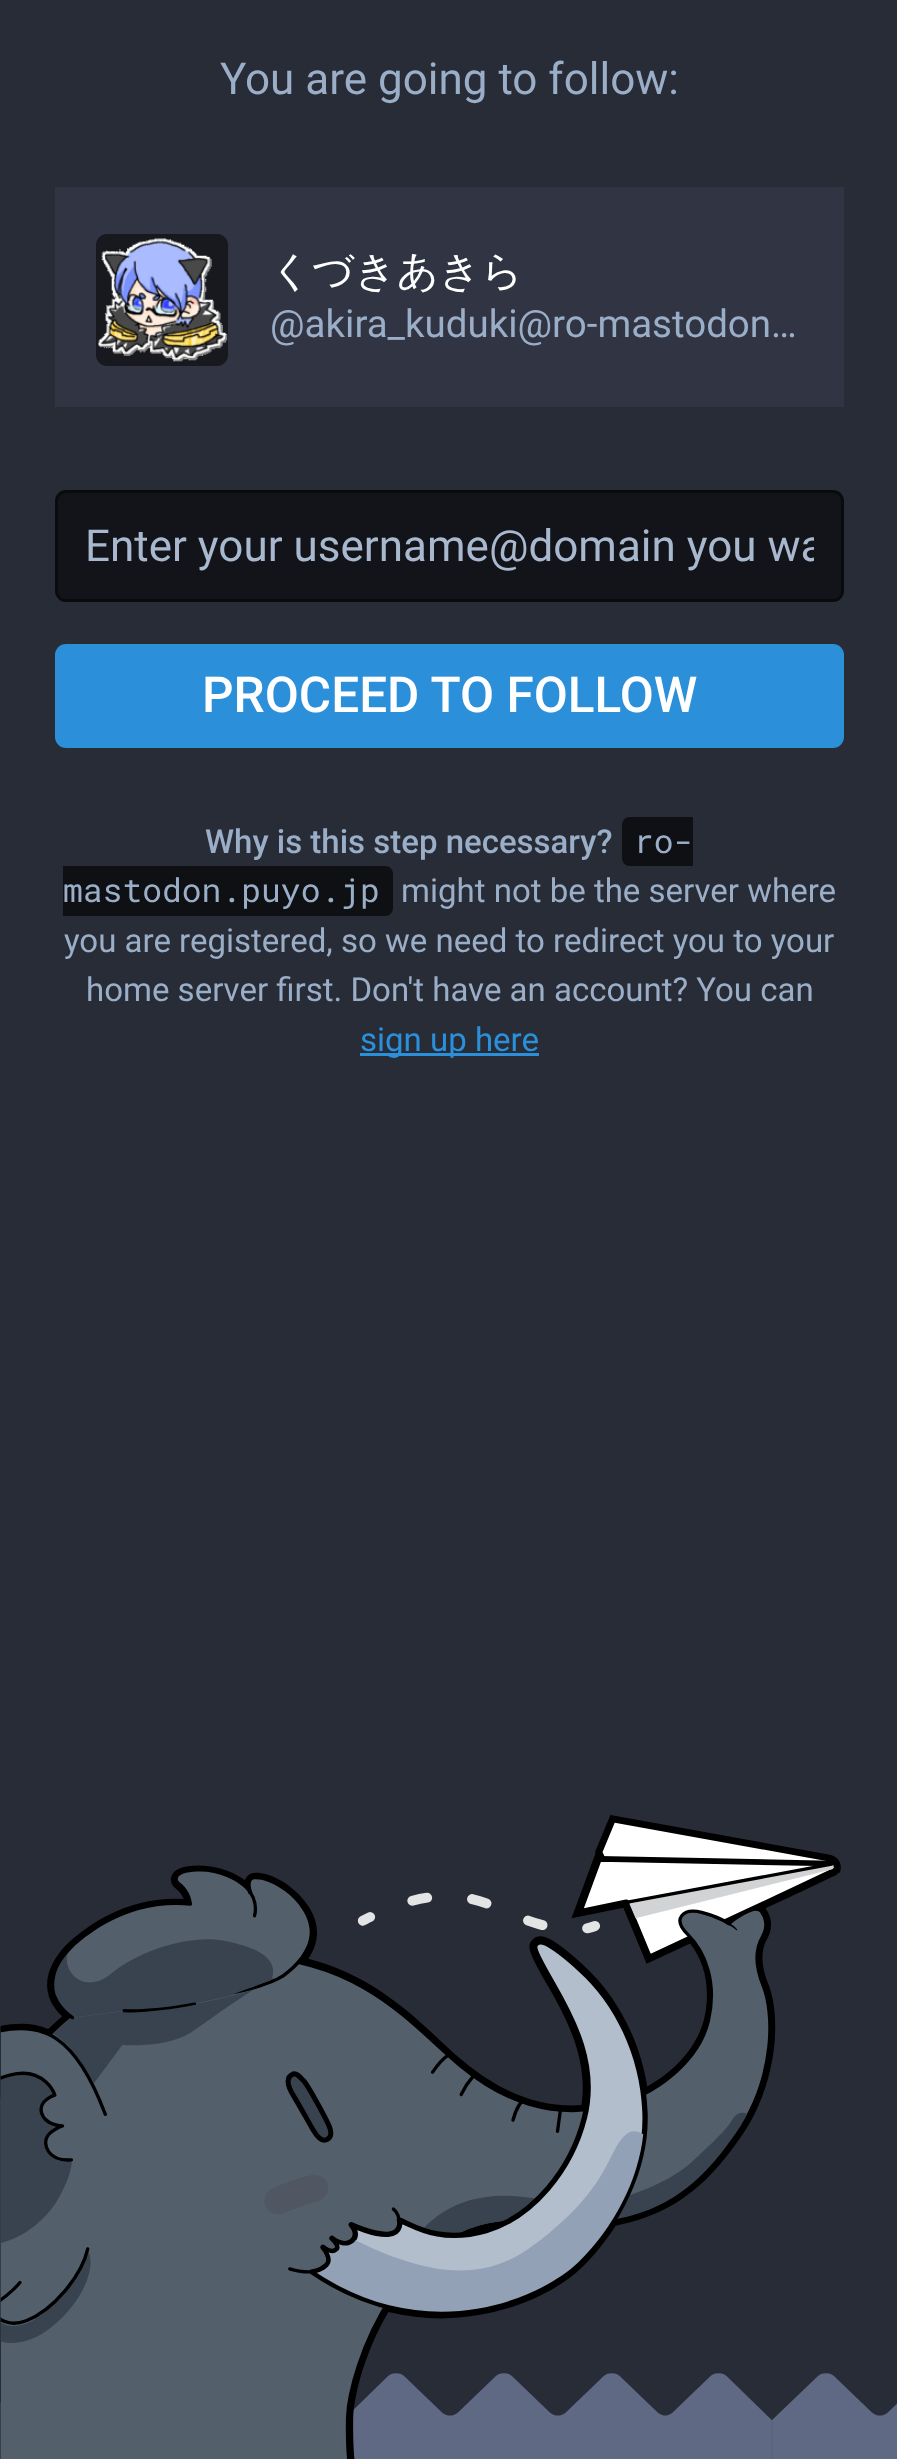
<svg xmlns="http://www.w3.org/2000/svg" xmlns:xlink="http://www.w3.org/1999/xlink" width="897" height="2459" viewBox="0 0 897 2459">
<style>
.cls-1{font:44px Roboto;fill:#9baec8}
.cls-2{font:500 41.25px WenQuanYi Zen Hei;fill:#ffffff}
.cls-3{font:38.5px Roboto;fill:#9baec8}
.cls-4{font:44px Roboto;fill:#a8b9cf}
.cls-5{font:500 49.5px Roboto;fill:#ffffff}
.cls-6{font:500 33px Roboto;fill:#9baec8}
.cls-7{font:33px Roboto Mono;fill:#9baec8}
.cls-8{font:33px Roboto;fill:#9baec8}
.cls-9{font:33px Roboto;fill:#2b90d9}
</style>
<defs>
<clipPath id="clip1"><rect x="85" y="520" width="729" height="52"/></clipPath>
</defs>
<rect width="100%" height="100%" fill="#282c37"/>
<image xlink:href="image0.png" x="0" y="2373" width="897" height="86"/>
<rect fill="#313543" x="55" y="187" width="789" height="220"/>
<rect fill="#17191f" x="96" y="234" width="132" height="132" rx="11"/>
<image xlink:href="image1.png" x="98" y="238" width="130" height="124"/>
<rect fill="#131419" stroke="#0a0b0e" stroke-width="3" x="56.5" y="491.5" width="786" height="109" rx="9.5"/>
<rect fill="#2b90d9" x="55" y="644" width="789" height="104" rx="11"/>
<path fill="#0e1014" d="M630 817H693V866H630C625.5 866 622 862.5 622 858V825C622 820.5 625.5 817 630 817Z"/>
<path fill="#0e1014" d="M63 866H385C389.5 866 393 869.5 393 874V908C393 912.5 389.5 916 385 916H63Z"/>
<rect fill="#2b90d9" x="360" y="1053" width="179" height="3"/>
<image xlink:href="image2.png" x="0" y="1815" width="841" height="644"/>
<text class="cls-1" x="220" y="94">You are going to follow:</text>
<text class="cls-2" x="270" y="285">くづきあきら</text>
<text class="cls-3" x="270" y="337">@akira_kuduki@ro-mastodon…</text>
<g clip-path="url(#clip1)">
<text class="cls-4" x="85" y="561">Enter your username@domain you wa</text>
</g>
<text class="cls-5" x="202" y="712">PROCEED TO FOLLOW</text>
<text class="cls-6" x="205" y="853">Why is this step necessary?</text>
<text class="cls-7" x="634" y="853">ro-</text>
<text class="cls-7" x="63" y="902">mastodon.puyo.jp</text>
<text class="cls-8" x="401" y="902">might not be the server where</text>
<text class="cls-8" x="64" y="952">you are registered, so we need to redirect you to your</text>
<text class="cls-8" x="86" y="1001">home server first. Don't have an account? You can</text>
<text class="cls-9" x="360" y="1051">sign up here</text>
</svg>
